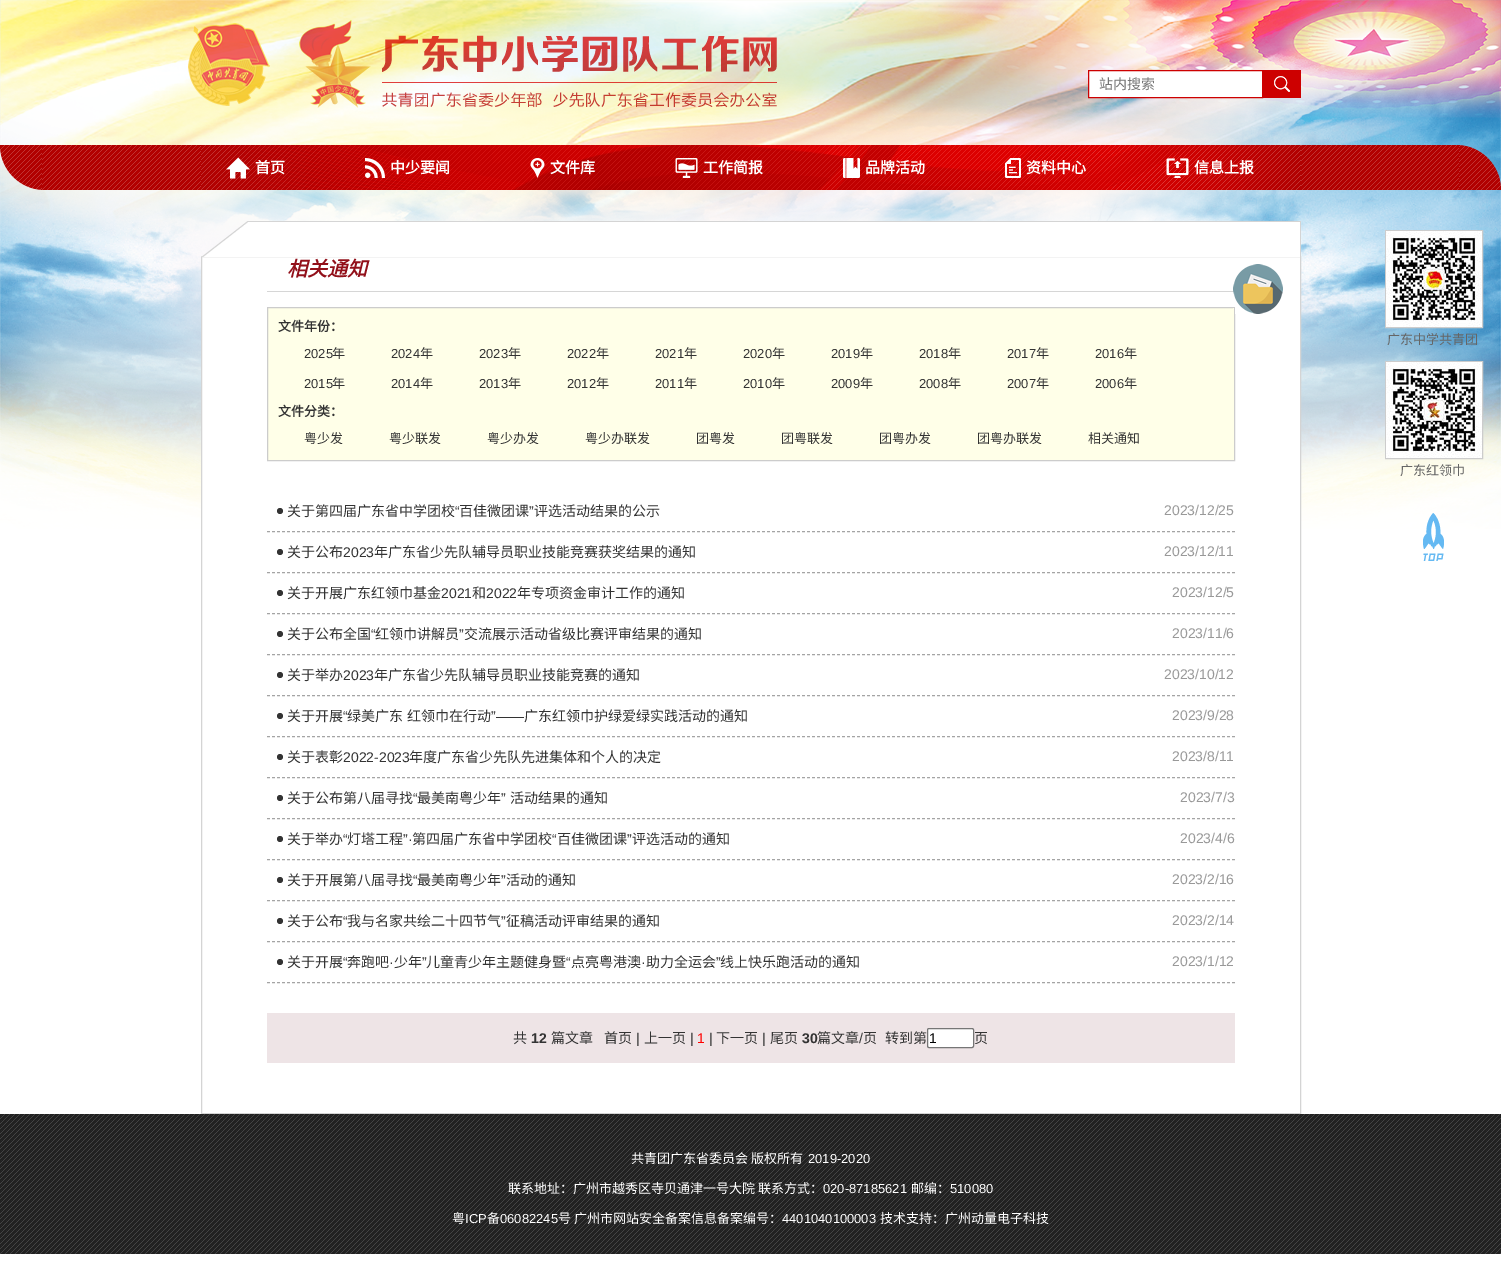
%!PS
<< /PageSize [1501 1277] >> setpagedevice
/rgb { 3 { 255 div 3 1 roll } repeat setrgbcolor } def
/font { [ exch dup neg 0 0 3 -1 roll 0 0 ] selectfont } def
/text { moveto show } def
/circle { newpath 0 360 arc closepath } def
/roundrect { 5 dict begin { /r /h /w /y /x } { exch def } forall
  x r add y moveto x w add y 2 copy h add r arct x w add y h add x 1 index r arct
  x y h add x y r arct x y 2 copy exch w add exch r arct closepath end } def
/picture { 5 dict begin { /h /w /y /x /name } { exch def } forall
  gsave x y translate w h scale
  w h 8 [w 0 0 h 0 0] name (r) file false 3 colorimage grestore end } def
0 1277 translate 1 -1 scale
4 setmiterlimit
255 255 255 rgb
0 0 1501 1277 rectfill
(img_01.rgb) 0 0 1501 529 picture
(img_02.rgb) 188 23 82 83 picture
(img_03.rgb) 299 20 478 88 picture
1088.5 70.5 moveto 174 0 rlineto 0 27 rlineto -174 0 rlineto closepath gsave fill grestore
205 0 0 rgb
stroke
1263 70 38 28 rectfill
(img_04.rgb) 1274 76 16 16 picture
(img_05.rgb) 42 145 1417 45 picture
(img_06.rgb) 0 145 42 45 picture
(img_07.rgb) 201 145 1100 45 picture
(img_08.rgb) 226 157 24 22 picture
(img_09.rgb) 365 158 20 20 picture
(img_10.rgb) 530 158 15 20 picture
(img_11.rgb) 675 158 23 20 picture
(img_12.rgb) 843 158 17 20 picture
(img_13.rgb) 1005 158 16 20 picture
(img_14.rgb) 1166 158 23 20 picture
(img_15.rgb) 1459 145 42 45 picture
255 255 255 rgb
202 257 1098 272 rectfill
212 212 212 rgb
201.5 256.5 1099 857 rectstroke
(img_16.rgb) 201 221 1100 36 picture
214 214 214 rgb
267 291 968 1 rectfill
255 255 232 rgb
267.5 307.5 moveto 967 0 rlineto 0 153 rlineto -967 0 rlineto closepath gsave fill grestore
204 204 204 rgb
stroke
(img_17.rgb) 1233 264 50 50 picture
164 164 164 rgb
[3 2] 0 setdash
267 531.5 moveto 968 0 rlineto stroke
51 51 51 rgb
280 511 3 circle fill
164 164 164 rgb
267 572.5 moveto 968 0 rlineto stroke
51 51 51 rgb
280 552 3 circle fill
164 164 164 rgb
267 613.5 moveto 968 0 rlineto stroke
51 51 51 rgb
280 593 3 circle fill
164 164 164 rgb
267 654.5 moveto 968 0 rlineto stroke
51 51 51 rgb
280 634 3 circle fill
164 164 164 rgb
267 695.5 moveto 968 0 rlineto stroke
51 51 51 rgb
280 675 3 circle fill
164 164 164 rgb
267 736.5 moveto 968 0 rlineto stroke
51 51 51 rgb
280 716 3 circle fill
164 164 164 rgb
267 777.5 moveto 968 0 rlineto stroke
51 51 51 rgb
280 757 3 circle fill
164 164 164 rgb
267 818.5 moveto 968 0 rlineto stroke
51 51 51 rgb
280 798 3 circle fill
164 164 164 rgb
267 859.5 moveto 968 0 rlineto stroke
51 51 51 rgb
280 839 3 circle fill
164 164 164 rgb
267 900.5 moveto 968 0 rlineto stroke
51 51 51 rgb
280 880 3 circle fill
164 164 164 rgb
267 941.5 moveto 968 0 rlineto stroke
51 51 51 rgb
280 921 3 circle fill
164 164 164 rgb
267 982.5 moveto 968 0 rlineto stroke
51 51 51 rgb
280 962 3 circle fill
238 228 230 rgb
267 1013 968 50 rectfill
255 255 255 rgb
927.5 1028.5 46 19 1.5 roundrect gsave fill grestore
118 118 118 rgb
[] 0 setdash
stroke
204 204 204 rgb
1385.5 230.5 97 97 rectstroke
(img_18.rgb) 1386 231 96 96 picture
1385.5 361.5 97 97 rectstroke
(img_19.rgb) 1386 362 96 96 picture
(img_20.rgb) 1423 513 21 48 picture
(img_21.rgb) 0 1114 1501 140 picture
/NotoSansCJKSC-Regular 14 font
117 117 117 rgb
(站内搜索) 1099 89 text
/NotoSansCJKSC-Bold 15 font
255 255 255 rgb
(首页) 255 173 text
(中少要闻) 390 173 text
(文件库) 550 173 text
(工作简报) 703 173 text
(品牌活动) 865 173 text
(资料中心) 1026 173 text
(信息上报) 1194 173 text
/NotoSansCJKSC-BoldItalic 20 font
146 16 26 rgb
(相关通知) 287 276 text
/NotoSansCJKSC-Bold 13 font
51 51 51 rgb
(文件年份：) 278 331 text
/LiberationSans-Regular 13 font
(2025) 304 358 text
/NotoSansCJKSC-Regular 13 font
(年) 332 358 text
/LiberationSans-Regular 13 font
(2024) 391 358 text
/NotoSansCJKSC-Regular 13 font
(年) 420 358 text
/LiberationSans-Regular 13 font
(2023) 479 358 text
/NotoSansCJKSC-Regular 13 font
(年) 508 358 text
/LiberationSans-Regular 13 font
(2022) 567 358 text
/NotoSansCJKSC-Regular 13 font
(年) 596 358 text
/LiberationSans-Regular 13 font
(2021) 655 358 text
/NotoSansCJKSC-Regular 13 font
(年) 684 358 text
/LiberationSans-Regular 13 font
(2020) 743 358 text
/NotoSansCJKSC-Regular 13 font
(年) 772 358 text
/LiberationSans-Regular 13 font
(2019) 831 358 text
/NotoSansCJKSC-Regular 13 font
(年) 860 358 text
/LiberationSans-Regular 13 font
(2018) 919 358 text
/NotoSansCJKSC-Regular 13 font
(年) 948 358 text
/LiberationSans-Regular 13 font
(2017) 1007 358 text
/NotoSansCJKSC-Regular 13 font
(年) 1036 358 text
/LiberationSans-Regular 13 font
(2016) 1095 358 text
/NotoSansCJKSC-Regular 13 font
(年) 1124 358 text
/LiberationSans-Regular 13 font
(2015) 304 388 text
/NotoSansCJKSC-Regular 13 font
(年) 332 388 text
/LiberationSans-Regular 13 font
(2014) 391 388 text
/NotoSansCJKSC-Regular 13 font
(年) 420 388 text
/LiberationSans-Regular 13 font
(2013) 479 388 text
/NotoSansCJKSC-Regular 13 font
(年) 508 388 text
/LiberationSans-Regular 13 font
(2012) 567 388 text
/NotoSansCJKSC-Regular 13 font
(年) 596 388 text
/LiberationSans-Regular 13 font
(2011) 655 388 text
/NotoSansCJKSC-Regular 13 font
(年) 684 388 text
/LiberationSans-Regular 13 font
(2010) 743 388 text
/NotoSansCJKSC-Regular 13 font
(年) 772 388 text
/LiberationSans-Regular 13 font
(2009) 831 388 text
/NotoSansCJKSC-Regular 13 font
(年) 860 388 text
/LiberationSans-Regular 13 font
(2008) 919 388 text
/NotoSansCJKSC-Regular 13 font
(年) 948 388 text
/LiberationSans-Regular 13 font
(2007) 1007 388 text
/NotoSansCJKSC-Regular 13 font
(年) 1036 388 text
/LiberationSans-Regular 13 font
(2006) 1095 388 text
/NotoSansCJKSC-Regular 13 font
(年) 1124 388 text
/NotoSansCJKSC-Bold 13 font
(文件分类：) 278 416 text
/NotoSansCJKSC-Regular 13 font
(粤少发) 304 443 text
(粤少联发) 389 443 text
(粤少办发) 487 443 text
(粤少办联发) 585 443 text
(团粤发) 696 443 text
(团粤联发) 781 443 text
(团粤办发) 879 443 text
(团粤办联发) 977 443 text
(相关通知) 1088 443 text
/NotoSansCJKSC-Regular 14 font
(关于第四届广东省中学团校) 287 516 text
/LiberationSans-Regular 14 font
(“) 455 516 text
/NotoSansCJKSC-Regular 14 font
(百佳微团课) 459 516 text
/LiberationSans-Regular 14 font
(”) 529 516 text
/NotoSansCJKSC-Regular 14 font
(评选活动结果的公示) 534 516 text
/LiberationSans-Regular 14 font
153 153 153 rgb
(2023/12/25) 1164 515 text
/NotoSansCJKSC-Regular 14 font
51 51 51 rgb
(关于公布) 287 557 text
/LiberationSans-Regular 14 font
(2023) 343 557 text
/NotoSansCJKSC-Regular 14 font
(年广东省少先队辅导员职业技能竞赛获奖结果的通知) 374 557 text
/LiberationSans-Regular 14 font
153 153 153 rgb
(2023/12/11) 1164 556 text
/NotoSansCJKSC-Regular 14 font
51 51 51 rgb
(关于开展广东红领巾基金) 287 598 text
/LiberationSans-Regular 14 font
(2021) 441 598 text
/NotoSansCJKSC-Regular 14 font
(和) 472 598 text
/LiberationSans-Regular 14 font
(2022) 486 598 text
/NotoSansCJKSC-Regular 14 font
(年专项资金审计工作的通知) 517 598 text
/LiberationSans-Regular 14 font
153 153 153 rgb
(2023/12/5) 1172 597 text
/NotoSansCJKSC-Regular 14 font
51 51 51 rgb
(关于公布全国) 287 639 text
/LiberationSans-Regular 14 font
(“) 371 639 text
/NotoSansCJKSC-Regular 14 font
(红领巾讲解员) 375 639 text
/LiberationSans-Regular 14 font
(”) 459 639 text
/NotoSansCJKSC-Regular 14 font
(交流展示活动省级比赛评审结果的通知) 464 639 text
/LiberationSans-Regular 14 font
153 153 153 rgb
(2023/11/6) 1172 638 text
/NotoSansCJKSC-Regular 14 font
51 51 51 rgb
(关于举办) 287 680 text
/LiberationSans-Regular 14 font
(2023) 343 680 text
/NotoSansCJKSC-Regular 14 font
(年广东省少先队辅导员职业技能竞赛的通知) 374 680 text
/LiberationSans-Regular 14 font
153 153 153 rgb
(2023/10/12) 1164 679 text
/NotoSansCJKSC-Regular 14 font
51 51 51 rgb
(关于开展) 287 721 text
/LiberationSans-Regular 14 font
(“) 343 721 text
/NotoSansCJKSC-Regular 14 font
(绿美广东) 347 721 text
(红领巾在行动) 407 721 text
/LiberationSans-Regular 14 font
(”——) 491 721 text
/NotoSansCJKSC-Regular 14 font
(广东红领巾护绿爱绿实践活动的通知) 524 721 text
/LiberationSans-Regular 14 font
153 153 153 rgb
(2023/9/28) 1172 720 text
/NotoSansCJKSC-Regular 14 font
51 51 51 rgb
(关于表彰) 287 762 text
/LiberationSans-Regular 14 font
(2022-2023) 343 762 text
/NotoSansCJKSC-Regular 14 font
(年度广东省少先队先进集体和个人的决定) 409 762 text
/LiberationSans-Regular 14 font
153 153 153 rgb
(2023/8/11) 1172 761 text
/NotoSansCJKSC-Regular 14 font
51 51 51 rgb
(关于公布第八届寻找) 287 803 text
/LiberationSans-Regular 14 font
(“) 413 803 text
/NotoSansCJKSC-Regular 14 font
(最美南粤少年) 417 803 text
/LiberationSans-Regular 14 font
(”) 501 803 text
/NotoSansCJKSC-Regular 14 font
(活动结果的通知) 510 803 text
/LiberationSans-Regular 14 font
153 153 153 rgb
(2023/7/3) 1180 802 text
/NotoSansCJKSC-Regular 14 font
51 51 51 rgb
(关于举办) 287 844 text
/LiberationSans-Regular 14 font
(“) 343 844 text
/NotoSansCJKSC-Regular 14 font
(灯塔工程) 347 844 text
/LiberationSans-Regular 14 font
(”·) 403 844 text
/NotoSansCJKSC-Regular 14 font
(第四届广东省中学团校) 412 844 text
/LiberationSans-Regular 14 font
(“) 552 844 text
/NotoSansCJKSC-Regular 14 font
(百佳微团课) 557 844 text
/LiberationSans-Regular 14 font
(”) 627 844 text
/NotoSansCJKSC-Regular 14 font
(评选活动的通知) 632 844 text
/LiberationSans-Regular 14 font
153 153 153 rgb
(2023/4/6) 1180 843 text
/NotoSansCJKSC-Regular 14 font
51 51 51 rgb
(关于开展第八届寻找) 287 885 text
/LiberationSans-Regular 14 font
(“) 413 885 text
/NotoSansCJKSC-Regular 14 font
(最美南粤少年) 417 885 text
/LiberationSans-Regular 14 font
(”) 501 885 text
/NotoSansCJKSC-Regular 14 font
(活动的通知) 506 885 text
/LiberationSans-Regular 14 font
153 153 153 rgb
(2023/2/16) 1172 884 text
/NotoSansCJKSC-Regular 14 font
51 51 51 rgb
(关于公布) 287 926 text
/LiberationSans-Regular 14 font
(“) 343 926 text
/NotoSansCJKSC-Regular 14 font
(我与名家共绘二十四节气) 347 926 text
/LiberationSans-Regular 14 font
(”) 501 926 text
/NotoSansCJKSC-Regular 14 font
(征稿活动评审结果的通知) 506 926 text
/LiberationSans-Regular 14 font
153 153 153 rgb
(2023/2/14) 1172 925 text
/NotoSansCJKSC-Regular 14 font
51 51 51 rgb
(关于开展) 287 967 text
/LiberationSans-Regular 14 font
(“) 343 967 text
/NotoSansCJKSC-Regular 14 font
(奔跑吧) 347 967 text
/LiberationSans-Regular 14 font
(·) 389 967 text
/NotoSansCJKSC-Regular 14 font
(少年) 394 967 text
/LiberationSans-Regular 14 font
(”) 422 967 text
/NotoSansCJKSC-Regular 14 font
(儿童青少年主题健身暨) 426 967 text
/LiberationSans-Regular 14 font
(“) 566 967 text
/NotoSansCJKSC-Regular 14 font
(点亮粤港澳) 571 967 text
/LiberationSans-Regular 14 font
(·) 641 967 text
/NotoSansCJKSC-Regular 14 font
(助力全运会) 646 967 text
/LiberationSans-Regular 14 font
(”) 716 967 text
/NotoSansCJKSC-Regular 14 font
(线上快乐跑活动的通知) 720 967 text
/LiberationSans-Regular 14 font
153 153 153 rgb
(2023/1/12) 1172 966 text
/NotoSansCJKSC-Regular 14 font
51 51 51 rgb
(共) 513 1043 text
/LiberationSans-Bold 14 font
(12) 531 1043 text
/NotoSansCJKSC-Regular 14 font
(篇文章) 551 1043 text
(首页) 604 1043 text
/LiberationSans-Regular 14 font
(|) 636 1043 text
/NotoSansCJKSC-Regular 14 font
(上一页) 644 1043 text
/LiberationSans-Regular 14 font
(|) 690 1043 text
255 0 0 rgb
(1) 697 1043 text
51 51 51 rgb
(|) 709 1043 text
/NotoSansCJKSC-Regular 14 font
(下一页) 716 1043 text
/LiberationSans-Regular 14 font
(|) 762 1043 text
/NotoSansCJKSC-Regular 14 font
(尾页) 770 1043 text
/LiberationSans-Bold 14 font
(30) 802 1043 text
/NotoSansCJKSC-Regular 14 font
(篇文章) 817 1043 text
/LiberationSans-Regular 14 font
(/) 859 1043 text
/NotoSansCJKSC-Regular 14 font
(页) 863 1043 text
(转到第) 885 1043 text
/LiberationSans-Regular 14 font
0 0 0 rgb
(1) 929 1043 text
/NotoSansCJKSC-Regular 14 font
51 51 51 rgb
(页) 974 1043 text
/NotoSansCJKSC-Regular 13 font
102 102 102 rgb
(广东中学共青团) 1387 344 text
(广东红领巾) 1400 475 text
255 255 255 rgb
(共青团广东省委员会 版权所有) 631 1163 text
/LiberationSans-Regular 13 font
(2019-2020) 808 1163 text
/NotoSansCJKSC-Regular 13 font
(联系地址：广州市越秀区寺贝通津一号大院 联系方式：) 508 1193 text
/LiberationSans-Regular 13 font
(020-87185621) 823 1193 text
/NotoSansCJKSC-Regular 13 font
(邮编：) 911 1193 text
/LiberationSans-Regular 13 font
(510080) 950 1193 text
/NotoSansCJKSC-Regular 13 font
(粤) 452 1223 text
/LiberationSans-Regular 13 font
(ICP) 465 1223 text
/NotoSansCJKSC-Regular 13 font
(备) 487 1223 text
/LiberationSans-Regular 13 font
(06082245) 500 1223 text
/NotoSansCJKSC-Regular 13 font
(号 广州市网站安全备案信息备案编号：) 558 1223 text
/LiberationSans-Regular 13 font
(4401040100003) 782 1223 text
/NotoSansCJKSC-Regular 13 font
(技术支持：广州动量电子科技) 880 1223 text
showpage
